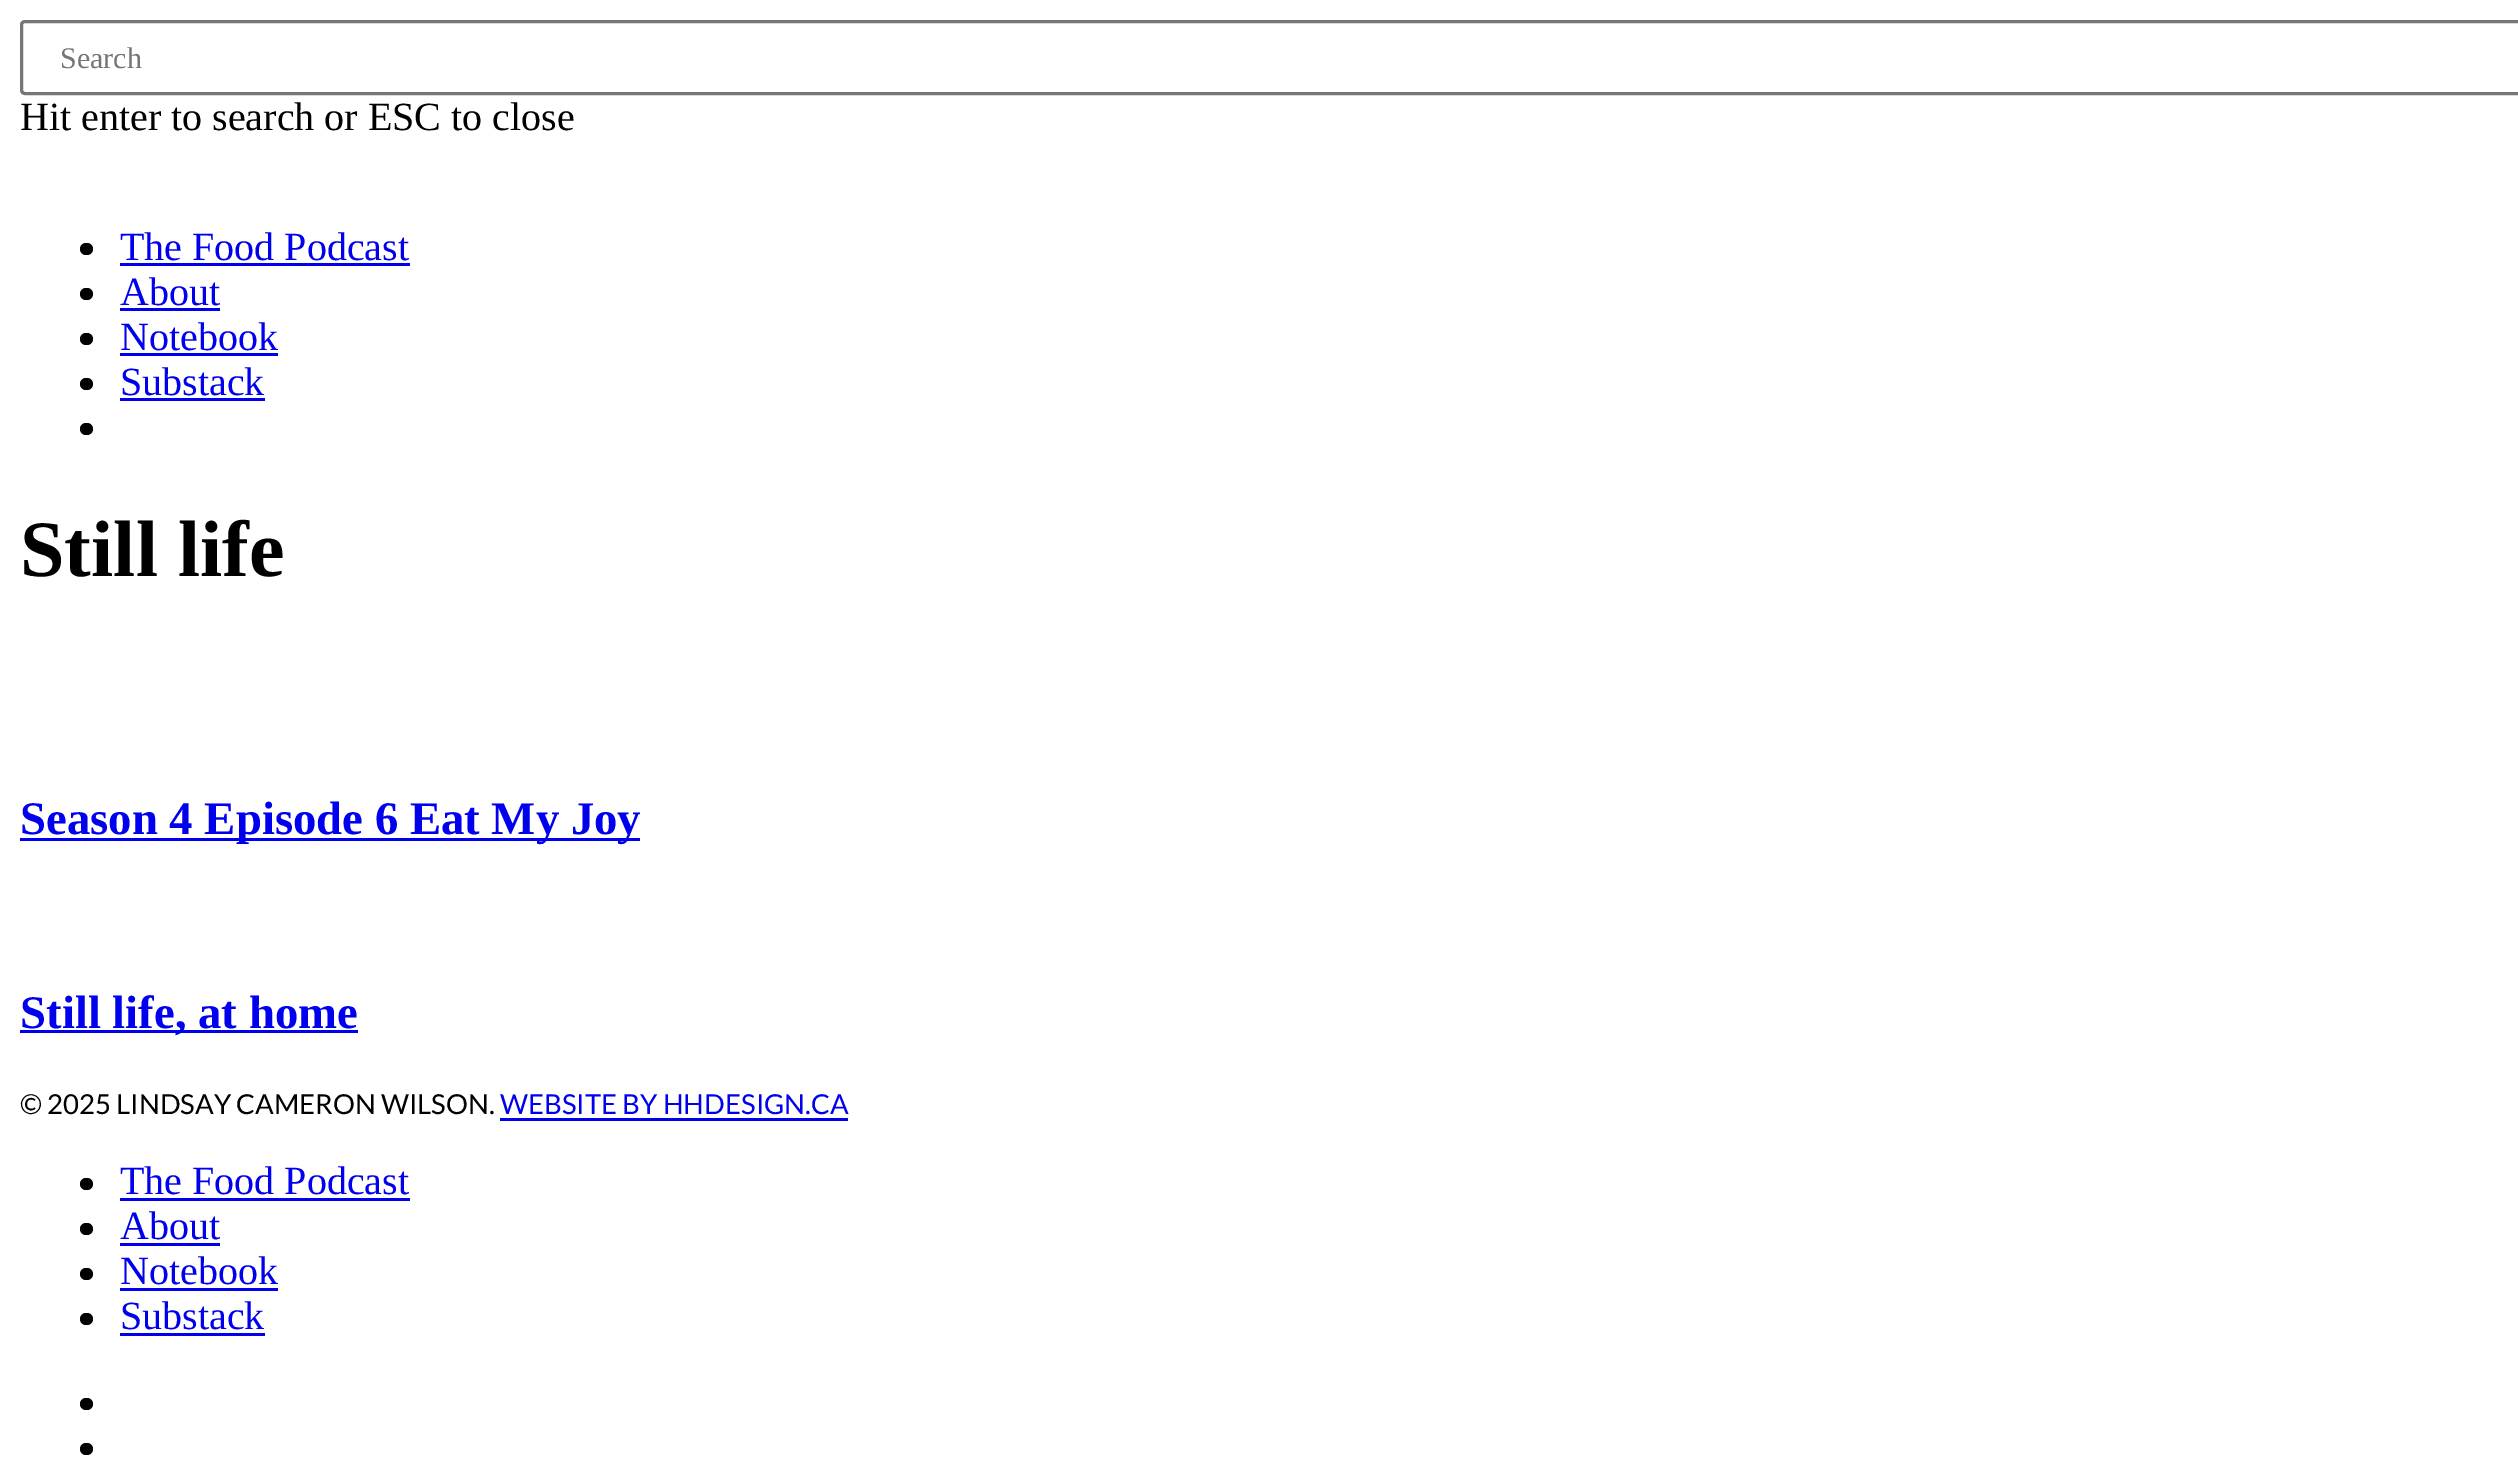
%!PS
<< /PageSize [2518 1457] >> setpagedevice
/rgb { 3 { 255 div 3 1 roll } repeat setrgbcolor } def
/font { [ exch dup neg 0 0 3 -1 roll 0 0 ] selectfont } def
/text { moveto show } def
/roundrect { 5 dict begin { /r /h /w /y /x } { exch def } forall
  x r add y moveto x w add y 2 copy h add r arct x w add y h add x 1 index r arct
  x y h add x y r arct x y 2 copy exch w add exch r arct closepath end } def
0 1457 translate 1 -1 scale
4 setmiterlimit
255 255 255 rgb
0 0 2518 1457 rectfill
118 118 118 rgb
3 setlinewidth
21.5 21.5 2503 72 3.5 roundrect stroke
0 0 0 rgb
80 243 13 12 6 roundrect fill
0 0 238 rgb
120 263 290 3 rectfill
0 0 0 rgb
80 288 13 12 6 roundrect fill
0 0 238 rgb
120 308 100 3 rectfill
0 0 0 rgb
80 333 13 12 6 roundrect fill
0 0 238 rgb
120 353 158 3 rectfill
0 0 0 rgb
80 378 13 12 6 roundrect fill
0 0 238 rgb
120 398 145 3 rectfill
0 0 0 rgb
80 423 13 12 6 roundrect fill
0 0 238 rgb
20 838 620 3 rectfill
20 1030 338 3 rectfill
500 1118 348 3 rectfill
0 0 0 rgb
80 1178 13 12 6 roundrect fill
0 0 238 rgb
120 1198 290 3 rectfill
0 0 0 rgb
80 1223 13 12 6 roundrect fill
0 0 238 rgb
120 1243 100 3 rectfill
0 0 0 rgb
80 1268 13 12 6 roundrect fill
0 0 238 rgb
120 1288 158 3 rectfill
0 0 0 rgb
80 1313 13 12 6 roundrect fill
0 0 238 rgb
120 1333 145 3 rectfill
0 0 0 rgb
80 1398 13 12 6 roundrect fill
80 1443 13 12 6 roundrect fill
/LiberationSerif-Regular 30 font
117 117 117 rgb
(Search) 60 68 text
/LiberationSerif-Regular 40 font
0 0 0 rgb
(Hit enter to search or ESC to close) 20 130 text
0 0 238 rgb
(The Food Podcast) 120 260 text
(About) 120 305 text
(Notebook) 120 350 text
(Substack) 120 395 text
/LiberationSerif-Bold 80 font
0 0 0 rgb
(Still life) 20 576 text
/LiberationSerif-Bold 46.75 font
0 0 238 rgb
(Season 4 Episode 6 Eat My Joy) 20 834 text
(Still life, at home) 20 1028 text
/Lato-Regular 27.5 font
0 0 0 rgb
(© 2025 LINDSAY CAMERON WILSON.) 20 1114 text
0 0 238 rgb
(WEBSITE BY HHDESIGN.CA) 500 1114 text
/LiberationSerif-Regular 40 font
(The Food Podcast) 120 1194 text
(About) 120 1239 text
(Notebook) 120 1284 text
(Substack) 120 1329 text
showpage
